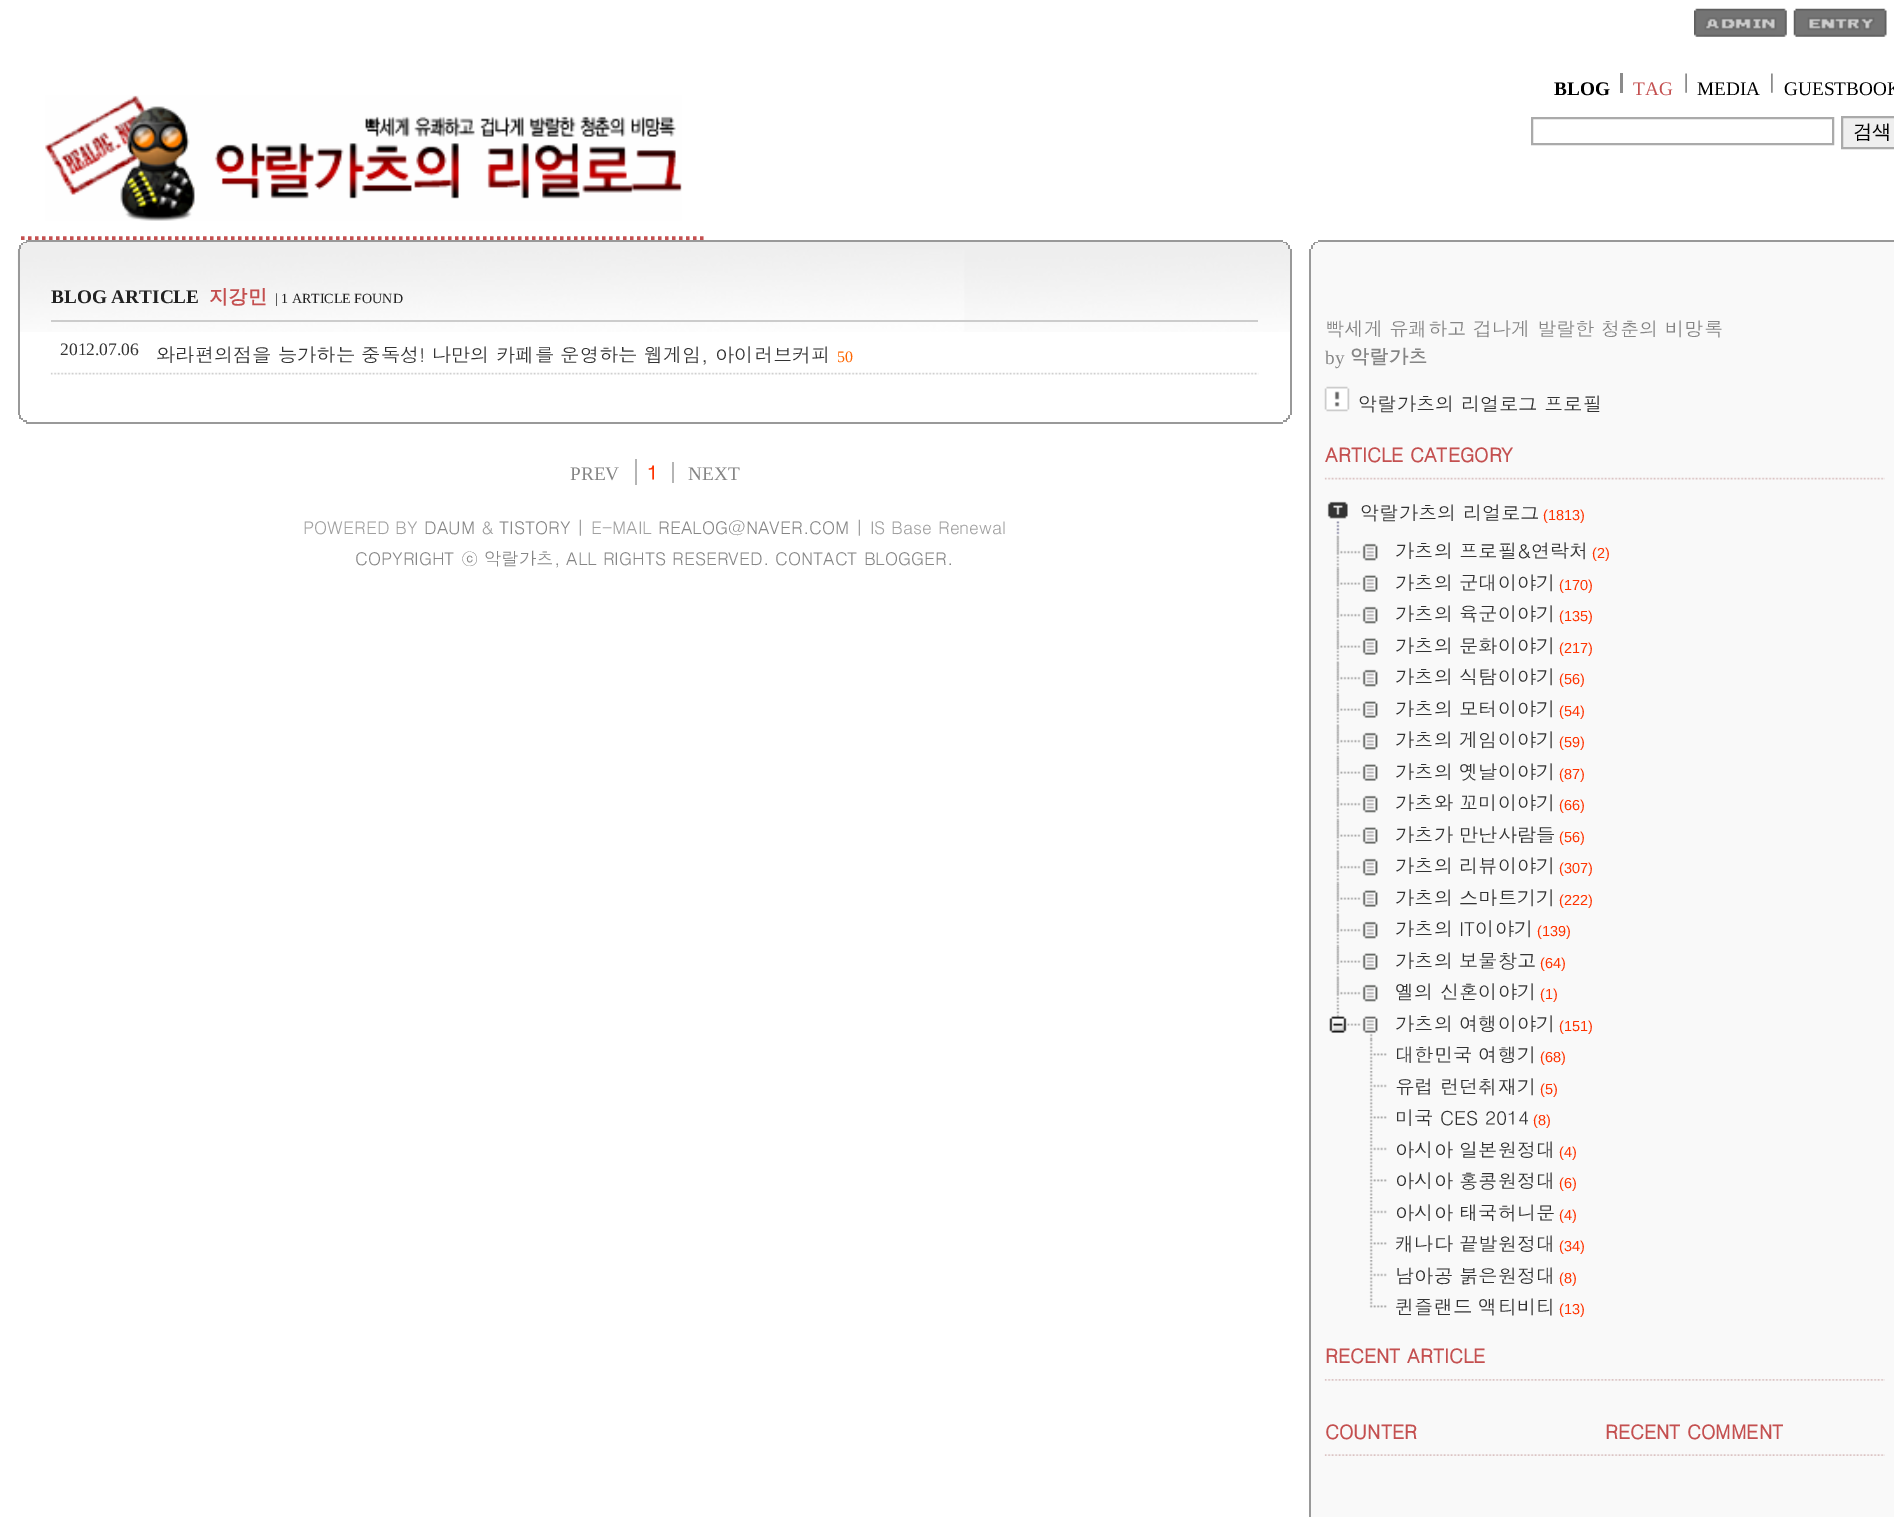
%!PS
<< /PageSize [1894 1517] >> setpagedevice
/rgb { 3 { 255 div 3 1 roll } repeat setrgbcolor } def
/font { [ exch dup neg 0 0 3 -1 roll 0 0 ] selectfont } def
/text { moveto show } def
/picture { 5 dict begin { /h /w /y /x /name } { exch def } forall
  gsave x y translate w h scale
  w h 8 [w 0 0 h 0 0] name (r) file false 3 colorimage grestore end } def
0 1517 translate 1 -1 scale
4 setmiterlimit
255 255 255 rgb
0 0 1894 1517 rectfill
(img_01.rgb) 1694 8 93 29 picture
(img_02.rgb) 1793 8 94 29 picture
139 139 139 rgb
1620 73 3 20 rectfill
(img_03.rgb) 1685 73 2 20 picture
(img_04.rgb) 1771 73 2 20 picture
196 80 80 rgb
3.5 setlinewidth
[3.5 3.5] 0 setdash
21 238 moveto 684 0 rlineto stroke
(img_05.rgb) 45 95 637 126 picture
170 170 170 rgb
2 setlinewidth
[] 0 setdash
1532 118 301 26 rectstroke
239 239 239 rgb
1842 117 moveto 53 0 rlineto 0 31 rlineto -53 0 rlineto closepath gsave fill grestore
170 170 170 rgb
stroke
153 153 153 rgb
26 240 1257 2 rectfill
238 238 238 rgb
23 242 1263 1 rectfill
153 153 153 rgb
1283 242 4 1 rectfill
23 242 4 1 rectfill
238 238 238 rgb
21 243 1267 2 rectfill
153 153 153 rgb
1286 243 2 2 rectfill
21 243 2 2 rectfill
(img_06.rgb) 17 248 1275 84 picture
238 238 238 rgb
19 245 1271 4 rectfill
153 153 153 rgb
1288 245 2 4 rectfill
19 245 2 4 rectfill
1290 249 2 166 rectfill
18 249 2 166 rectfill
204 204 204 rgb
51 320 1207 2 rectfill
(img_07.rgb) 50 372 1209 3 picture
153 153 153 rgb
1288 415 2 4 rectfill
19 415 2 4 rectfill
1286 418 2 2 rectfill
21 418 2 2 rectfill
1283 420 4 2 rectfill
23 420 4 2 rectfill
26 422 1257 2 rectfill
181 181 181 rgb
635 459 2 26 rectfill
672 462 2 21 rectfill
153 153 153 rgb
1318 240 576 2 rectfill
249 249 249 rgb
1314 242 580 1 rectfill
153 153 153 rgb
1314 242 4 1 rectfill
249 249 249 rgb
1313 243 581 2 rectfill
153 153 153 rgb
1313 243 2 2 rectfill
249 249 249 rgb
1311 245 583 1272 rectfill
153 153 153 rgb
1311 245 2 4 rectfill
1309 249 2 1268 rectfill
(img_08.rgb) 1324 386 26 26 picture
(img_09.rgb) 1324 477 561 3 picture
(img_10.rgb) 1327 501 21 34 picture
(img_11.rgb) 1336 535 4 32 picture
(img_12.rgb) 1336 537 42 24 picture
(img_13.rgb) 1336 567 4 32 picture
(img_14.rgb) 1336 568 42 24 picture
(img_15.rgb) 1336 598 4 32 picture
(img_12.rgb) 1336 600 42 24 picture
(img_13.rgb) 1336 630 4 32 picture
(img_14.rgb) 1336 631 42 24 picture
(img_15.rgb) 1336 661 4 32 picture
(img_12.rgb) 1336 663 42 24 picture
(img_13.rgb) 1336 693 4 32 picture
(img_14.rgb) 1336 694 42 24 picture
(img_15.rgb) 1336 724 4 32 picture
(img_12.rgb) 1336 726 42 24 picture
(img_13.rgb) 1336 756 4 32 picture
(img_14.rgb) 1336 757 42 24 picture
(img_15.rgb) 1336 787 4 32 picture
(img_12.rgb) 1336 789 42 24 picture
(img_13.rgb) 1336 819 4 32 picture
(img_14.rgb) 1336 820 42 24 picture
(img_15.rgb) 1336 850 4 32 picture
(img_12.rgb) 1336 852 42 24 picture
(img_13.rgb) 1336 882 4 32 picture
(img_14.rgb) 1336 883 42 24 picture
(img_15.rgb) 1336 913 4 32 picture
(img_12.rgb) 1336 915 42 24 picture
(img_13.rgb) 1336 945 4 32 picture
(img_14.rgb) 1336 946 42 24 picture
(img_15.rgb) 1336 976 4 32 picture
(img_12.rgb) 1336 978 42 24 picture
(img_16.rgb) 1336 1008 4 10 picture
(img_17.rgb) 1329 1016 49 24 picture
(img_18.rgb) 1369 1039 18 31 picture
(img_19.rgb) 1369 1071 18 31 picture
(img_20.rgb) 1369 1102 18 31 picture
(img_19.rgb) 1369 1134 18 31 picture
(img_20.rgb) 1369 1165 18 31 picture
(img_19.rgb) 1369 1197 18 31 picture
(img_20.rgb) 1369 1228 18 31 picture
(img_19.rgb) 1369 1260 18 31 picture
(img_21.rgb) 1369 1291 18 17 picture
(img_22.rgb) 1324 1379 561 2 picture
(img_23.rgb) 1324 1454 281 2 picture
(img_24.rgb) 1604 1454 281 2 picture
/LiberationSerif-Bold 19.25 font
0 0 0 rgb
(BLOG) 1554 95 text
/LiberationSerif-Regular 19.25 font
196 80 80 rgb
(TAG) 1633 95 text
0 0 0 rgb
(MEDIA) 1697 95 text
(GUESTBOOK) 1784 95 text
/WenQuanYiZenHei-Medium 19.25 font
(검색) 1853 138 text
/LiberationSerif-Bold 19.25 font
34 34 34 rgb
(BLOG ARTICLE) 51 303 text
/WenQuanYiZenHei-Bold 19.25 font
196 80 80 rgb
(지강민) 209 303 text
/LiberationSerif-Regular 14 font
34 34 34 rgb
(| 1 ARTICLE FOUND) 275 303 text
/LiberationSerif-Regular 17.5 font
51 51 51 rgb
(2012.07.06) 60 355 text
/Dotum-Regular 19.25 font
(와라편의점을 능가하는 중독성! 나만의 카페를 운영하는 웹게임, 아이러브커피) 156 362 text
/LiberationSerif-Regular 16 font
255 102 0 rgb
(50) 837 362 text
/LiberationSerif-Regular 19.25 font
133 133 133 rgb
(PREV) 570 480 text
/Dotum-Bold 19.25 font
255 51 0 rgb
(1) 647 480 text
/LiberationSerif-Regular 19.25 font
133 133 133 rgb
(NEXT) 688 480 text
/Dotum-Regular 17.5 font
160 160 160 rgb
(POWERED BY) 303 534 text
133 133 133 rgb
(DAUM) 424 534 text
160 160 160 rgb
(&) 481 534 text
133 133 133 rgb
(TISTORY) 499 534 text
160 160 160 rgb
(| E-MAIL) 576 534 text
133 133 133 rgb
(REALOG@NAVER.COM) 658 534 text
160 160 160 rgb
(| IS Base Renewal) 855 534 text
133 133 133 rgb
(COPYRIGHT ⓒ 악랄가츠, ALL RIGHTS RESERVED. CONTACT BLOGGER.) 355 565 text
/Dotum-Regular 19.25 font
(빡세게 유쾌하고 겁나게 발랄한 청춘의 비망록) 1325 336 text
/LiberationSerif-Regular 19.25 font
(by) 1325 364 text
/Dotum-Bold 19.25 font
(악랄가츠) 1350 364 text
/Dotum-Regular 19.25 font
51 51 51 rgb
(악랄가츠의 리얼로그 프로필) 1358 411 text
/Dotum-Bold 19.25 font
196 80 80 rgb
(ARTICLE CATEGORY) 1325 462 text
/Dotum-Regular 19.25 font
51 51 51 rgb
(악랄가츠의 리얼로그) 1360 520 text
/LiberationSans-Regular 14.5 font
255 51 0 rgb
(\(1813\)) 1543 520 text
/Dotum-Regular 19.25 font
51 51 51 rgb
(가츠의 프로필&연락처) 1395 558 text
/LiberationSans-Regular 14.5 font
255 51 0 rgb
(\(2\)) 1592 558 text
/Dotum-Regular 19.25 font
51 51 51 rgb
(가츠의 군대이야기) 1395 590 text
/LiberationSans-Regular 14.5 font
255 51 0 rgb
(\(170\)) 1559 590 text
/Dotum-Regular 19.25 font
51 51 51 rgb
(가츠의 육군이야기) 1395 621 text
/LiberationSans-Regular 14.5 font
255 51 0 rgb
(\(135\)) 1559 621 text
/Dotum-Regular 19.25 font
51 51 51 rgb
(가츠의 문화이야기) 1395 653 text
/LiberationSans-Regular 14.5 font
255 51 0 rgb
(\(217\)) 1559 653 text
/Dotum-Regular 19.25 font
51 51 51 rgb
(가츠의 식탐이야기) 1395 684 text
/LiberationSans-Regular 14.5 font
255 51 0 rgb
(\(56\)) 1559 684 text
/Dotum-Regular 19.25 font
51 51 51 rgb
(가츠의 모터이야기) 1395 716 text
/LiberationSans-Regular 14.5 font
255 51 0 rgb
(\(54\)) 1559 716 text
/Dotum-Regular 19.25 font
51 51 51 rgb
(가츠의 게임이야기) 1395 747 text
/LiberationSans-Regular 14.5 font
255 51 0 rgb
(\(59\)) 1559 747 text
/Dotum-Regular 19.25 font
51 51 51 rgb
(가츠의 옛날이야기) 1395 779 text
/LiberationSans-Regular 14.5 font
255 51 0 rgb
(\(87\)) 1559 779 text
/Dotum-Regular 19.25 font
51 51 51 rgb
(가츠와 꼬미이야기) 1395 810 text
/LiberationSans-Regular 14.5 font
255 51 0 rgb
(\(66\)) 1559 810 text
/Dotum-Regular 19.25 font
51 51 51 rgb
(가츠가 만난사람들) 1395 842 text
/LiberationSans-Regular 14.5 font
255 51 0 rgb
(\(56\)) 1559 842 text
/Dotum-Regular 19.25 font
51 51 51 rgb
(가츠의 리뷰이야기) 1395 873 text
/LiberationSans-Regular 14.5 font
255 51 0 rgb
(\(307\)) 1559 873 text
/Dotum-Regular 19.25 font
51 51 51 rgb
(가츠의 스마트기기) 1395 905 text
/LiberationSans-Regular 14.5 font
255 51 0 rgb
(\(222\)) 1559 905 text
/Dotum-Regular 19.25 font
51 51 51 rgb
(가츠의 IT이야기) 1395 936 text
/LiberationSans-Regular 14.5 font
255 51 0 rgb
(\(139\)) 1537 936 text
/Dotum-Regular 19.25 font
51 51 51 rgb
(가츠의 보물창고) 1395 968 text
/LiberationSans-Regular 14.5 font
255 51 0 rgb
(\(64\)) 1540 968 text
/Dotum-Regular 19.25 font
51 51 51 rgb
(옐의 신혼이야기) 1395 999 text
/LiberationSans-Regular 14.5 font
255 51 0 rgb
(\(1\)) 1540 999 text
/Dotum-Regular 19.25 font
51 51 51 rgb
(가츠의 여행이야기) 1395 1031 text
/LiberationSans-Regular 14.5 font
255 51 0 rgb
(\(151\)) 1559 1031 text
/Dotum-Regular 19.25 font
51 51 51 rgb
(대한민국 여행기) 1395 1062 text
/LiberationSans-Regular 14.5 font
255 51 0 rgb
(\(68\)) 1540 1062 text
/Dotum-Regular 19.25 font
51 51 51 rgb
(유럽 런던취재기) 1395 1094 text
/LiberationSans-Regular 14.5 font
255 51 0 rgb
(\(5\)) 1540 1094 text
/Dotum-Regular 19.25 font
51 51 51 rgb
(미국 CES 2014) 1395 1125 text
/LiberationSans-Regular 14.5 font
255 51 0 rgb
(\(8\)) 1533 1125 text
/Dotum-Regular 19.25 font
51 51 51 rgb
(아시아 일본원정대) 1395 1157 text
/LiberationSans-Regular 14.5 font
255 51 0 rgb
(\(4\)) 1559 1157 text
/Dotum-Regular 19.25 font
51 51 51 rgb
(아시아 홍콩원정대) 1395 1188 text
/LiberationSans-Regular 14.5 font
255 51 0 rgb
(\(6\)) 1559 1188 text
/Dotum-Regular 19.25 font
51 51 51 rgb
(아시아 태국허니문) 1395 1220 text
/LiberationSans-Regular 14.5 font
255 51 0 rgb
(\(4\)) 1559 1220 text
/Dotum-Regular 19.25 font
51 51 51 rgb
(캐나다 끝발원정대) 1395 1251 text
/LiberationSans-Regular 14.5 font
255 51 0 rgb
(\(34\)) 1559 1251 text
/Dotum-Regular 19.25 font
51 51 51 rgb
(남아공 붉은원정대) 1395 1283 text
/LiberationSans-Regular 14.5 font
255 51 0 rgb
(\(8\)) 1559 1283 text
/Dotum-Regular 19.25 font
51 51 51 rgb
(퀸즐랜드 액티비티) 1395 1314 text
/LiberationSans-Regular 14.5 font
255 51 0 rgb
(\(13\)) 1559 1314 text
/Dotum-Bold 19.25 font
196 80 80 rgb
(RECENT ARTICLE) 1325 1363 text
(COUNTER) 1325 1439 text
(RECENT COMMENT) 1605 1439 text
showpage
